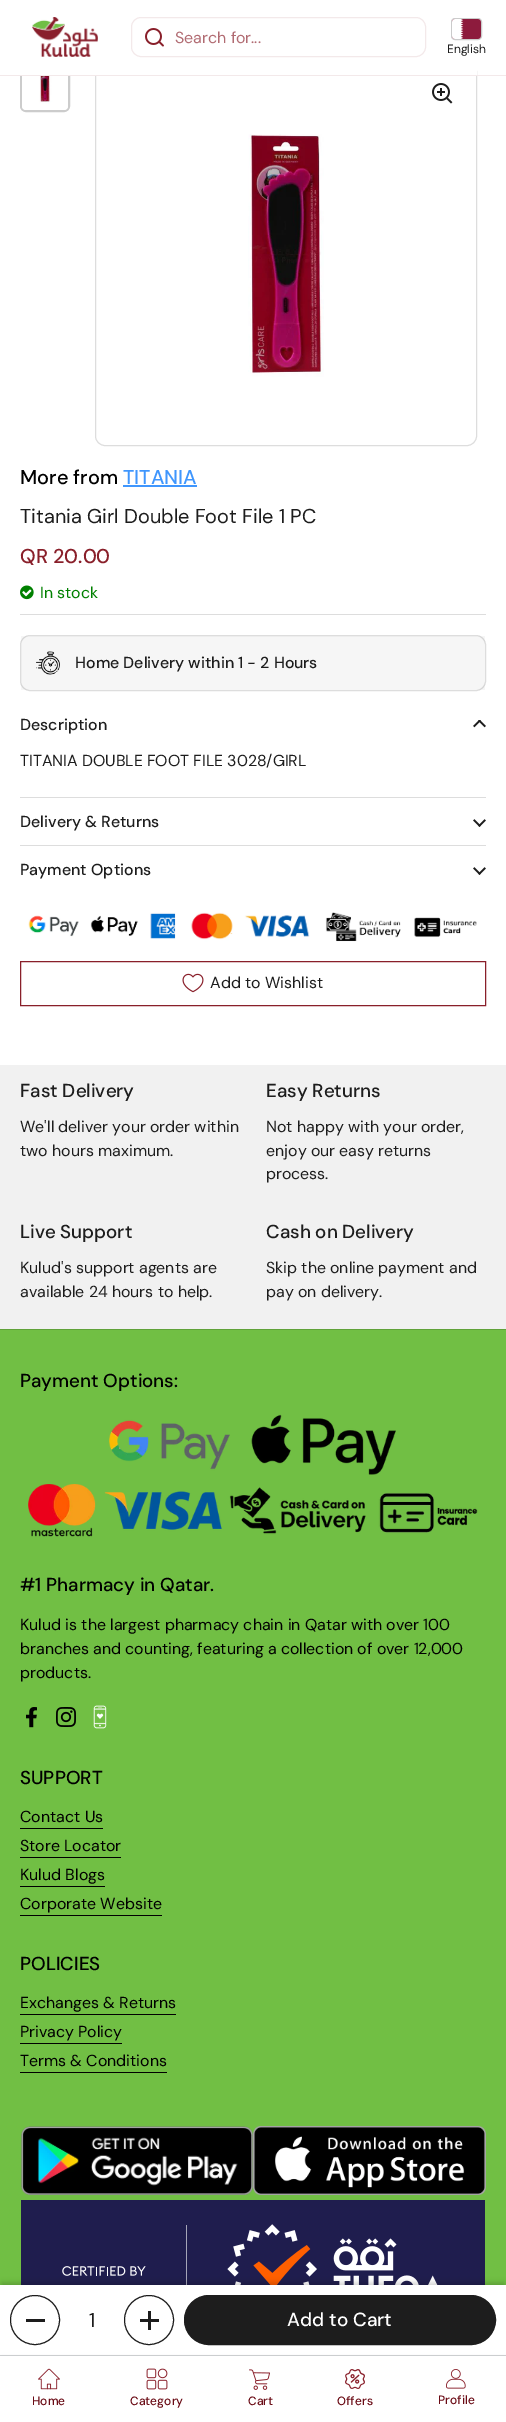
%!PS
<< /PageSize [506 2422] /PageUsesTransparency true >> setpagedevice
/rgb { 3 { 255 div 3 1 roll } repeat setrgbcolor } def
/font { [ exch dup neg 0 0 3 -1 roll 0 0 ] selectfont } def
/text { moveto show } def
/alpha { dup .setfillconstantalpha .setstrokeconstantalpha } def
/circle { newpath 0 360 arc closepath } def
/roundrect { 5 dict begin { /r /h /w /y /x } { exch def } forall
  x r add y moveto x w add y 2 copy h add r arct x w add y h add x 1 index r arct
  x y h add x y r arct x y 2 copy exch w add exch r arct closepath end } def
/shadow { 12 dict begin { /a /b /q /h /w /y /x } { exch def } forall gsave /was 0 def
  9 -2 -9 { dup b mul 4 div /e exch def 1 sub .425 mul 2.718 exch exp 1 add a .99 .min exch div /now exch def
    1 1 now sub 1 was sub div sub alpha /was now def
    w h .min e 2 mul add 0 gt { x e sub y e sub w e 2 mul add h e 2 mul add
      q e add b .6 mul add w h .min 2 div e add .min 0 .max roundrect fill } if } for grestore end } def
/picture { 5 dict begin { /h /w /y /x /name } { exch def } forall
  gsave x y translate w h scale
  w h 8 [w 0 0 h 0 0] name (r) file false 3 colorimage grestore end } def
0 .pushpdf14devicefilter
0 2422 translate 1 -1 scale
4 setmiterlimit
255 255 255 rgb
0 0 506 2422 rectfill
204 204 204 rgb
2 setlinewidth
21 63 48 48 5 roundrect stroke
221 221 221 rgb
1 setlinewidth
95.5 62.5 381 383 9.5 roundrect stroke
255 255 255 rgb
20 62 457 13 rectfill
243 233 234 rgb
0 75 506 1 rectfill
(img_01.rgb) 32 17 66 40 picture
131.5 17.5 294 39 9.5 roundrect stroke
(img_02.rgb) 145 28 19 19 picture
203 203 203 rgb
451.5 18.5 30 21 3.5 roundrect stroke
(img_03.rgb) 452 19 29 20 picture
(img_04.rgb) 22 76 46 34 picture
(img_05.rgb) 432 83 21 21 picture
(img_06.rgb) 248 134 76 243 picture
63 150 253 rgb
123 485 74 2 rectfill
(img_07.rgb) 20 585 14 15 picture
221 221 221 rgb
20 614 466 1 rectfill
20.5 635.5 465 55 9.5 roundrect stroke
0.04 alpha
29 29 29 rgb
21 636 464 54 rectfill
1 alpha
(img_08.rgb) 36 651 24 24 picture
(img_09.rgb) 473 720 13 8 picture
221 221 221 rgb
20 797 466 1 rectfill
(img_10.rgb) 473 819 13 8 picture
20 845 466 1 rectfill
(img_10.rgb) 473 867 13 8 picture
(img_11.rgb) 28 912 449 30 picture
137 31 42 rgb
20.5 961.5 465 44 rectstroke
(img_12.rgb) 182 973 22 20 picture
241 241 241 rgb
0 1065 506 264 rectfill
113 191 68 rgb
0 1330 506 955 rectfill
96 162 58 rgb
0 1329 506 1 rectfill
(img_13.rgb) 28 1414 450 123 picture
(img_14.rgb) 26 1707 11 21 picture
(img_15.rgb) 56 1707 20 20 picture
(img_16.rgb) 93 1705 14 24 picture
0 0 0 rgb
20 1828 83 1 rectfill
20 1857 101 1 rectfill
20 1886 85 1 rectfill
20 1915 142 1 rectfill
20 2014 156 1 rectfill
20 2043 102 1 rectfill
20 2072 147 1 rectfill
(img_17.rgb) 21 2126 232 69 picture
(img_18.rgb) 253 2126 233 69 picture
(img_19.rgb) 21 2200 464 85 picture
205 207 209 rgb
0 2355 506 1 rectfill
0 0 0 rgb
2 2283 502 66 0 3 0.2 shadow
255 255 255 rgb
0 2285 506 69 rectfill
29 29 29 rgb
35 2320 24.5 circle stroke
26 2319 19 3 rectfill
149 2320 24.5 circle stroke
148 2311 3 19 rectfill
140 2319 19 3 rectfill
184.5 2295.5 311 49 24.5 roundrect gsave fill grestore
stroke
(img_20.rgb) 38 2368 22 22 picture
(img_21.rgb) 146 2368 22 22 picture
(img_22.rgb) 249 2369 21 21 picture
(img_23.rgb) 345 2369 20 20 picture
(img_24.rgb) 446 2369 20 20 picture
/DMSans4-Regular 16 font
177 107 114 rgb
(Search for...) 175 43 text
/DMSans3-Regular 12 font
29 29 29 rgb
(English) 447 53 text
/DMSans-Medium 20 font
0 0 0 rgb
(More from) 20 484 text
63 150 253 rgb
(TITANIA) 123 484 text
/DMSans-Regular 20 font
29 29 29 rgb
(Titania Girl Double Foot File 1 PC) 20 523 text
/DMSans-Medium 20 font
137 31 42 rgb
(QR 20.00) 20 563 text
/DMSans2-Regular 15.95 font
0 128 0 rgb
(In stock) 40 598 text
/DMSans2-Medium 15.95 font
29 29 29 rgb
(Home Delivery within 1 - 2 Hours) 75 668 text
(Description) 20 730 text
/DMSans2-Regular 15.95 font
(TITANIA DOUBLE FOOT FILE 3028/GIRL) 20 766 text
/DMSans2-Medium 15.95 font
(Delivery & Returns) 20 827 text
(Payment Options) 20 875 text
/DMSans2-Regular 15.95 font
(Add to Wishlist) 210 988 text
/DMSans3-Medium 18.75 font
(Fast Delivery) 20 1097 text
/DMSans2-Regular 15.95 font
(We'll deliver your order within) 20 1132 text
(two hours maximum.) 20 1156 text
/DMSans3-Medium 18.75 font
(Easy Returns) 266 1097 text
/DMSans2-Regular 15.95 font
(Not happy with your order,) 266 1132 text
(enjoy our easy returns) 266 1156 text
(process.) 266 1179 text
/DMSans3-Medium 18.75 font
(Live Support) 20 1238 text
/DMSans2-Regular 15.95 font
(Kulud's support agents are) 20 1273 text
(available 24 hours to help.) 20 1297 text
/DMSans3-Medium 18.75 font
(Cash on Delivery) 266 1238 text
/DMSans2-Regular 15.95 font
(Skip the online payment and) 266 1273 text
(pay on delivery.) 266 1297 text
/DMSans3-Medium 18.75 font
0 0 0 rgb
(Payment Options:) 20 1387 text
(#1 Pharmacy in Qatar.) 20 1591 text
/DMSans2-Regular 15.95 font
(Kulud is the largest pharmacy chain in Qatar with over 100) 20 1630 text
(branches and counting, featuring a collection of over 12,000) 20 1654 text
(products.) 20 1678 text
/DMSans3-Medium 18.75 font
(SUPPORT) 20 1784 text
/DMSans2-Regular 15.95 font
(Contact Us) 20 1822 text
(Store Locator) 20 1851 text
(Kulud Blogs) 20 1880 text
(Corporate Website) 20 1909 text
/DMSans3-Medium 18.75 font
(POLICIES) 20 1970 text
/DMSans2-Regular 15.95 font
(Exchanges & Returns) 20 2008 text
(Privacy Policy) 20 2037 text
(Terms & Conditions) 20 2066 text
/DMSans-Regular 20 font
29 29 29 rgb
(1) 89 2327 text
/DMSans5-Medium 19 font
255 255 255 rgb
(Add to Cart) 287 2326 text
/DMSans4-Medium 12 font
106 11 21 rgb
(Home) 32 2405 text
(Category) 130 2405 text
(Cart) 248 2405 text
(Offers) 337 2405 text
(Profile) 438 2404 text
.poppdf14devicefilter showpage
